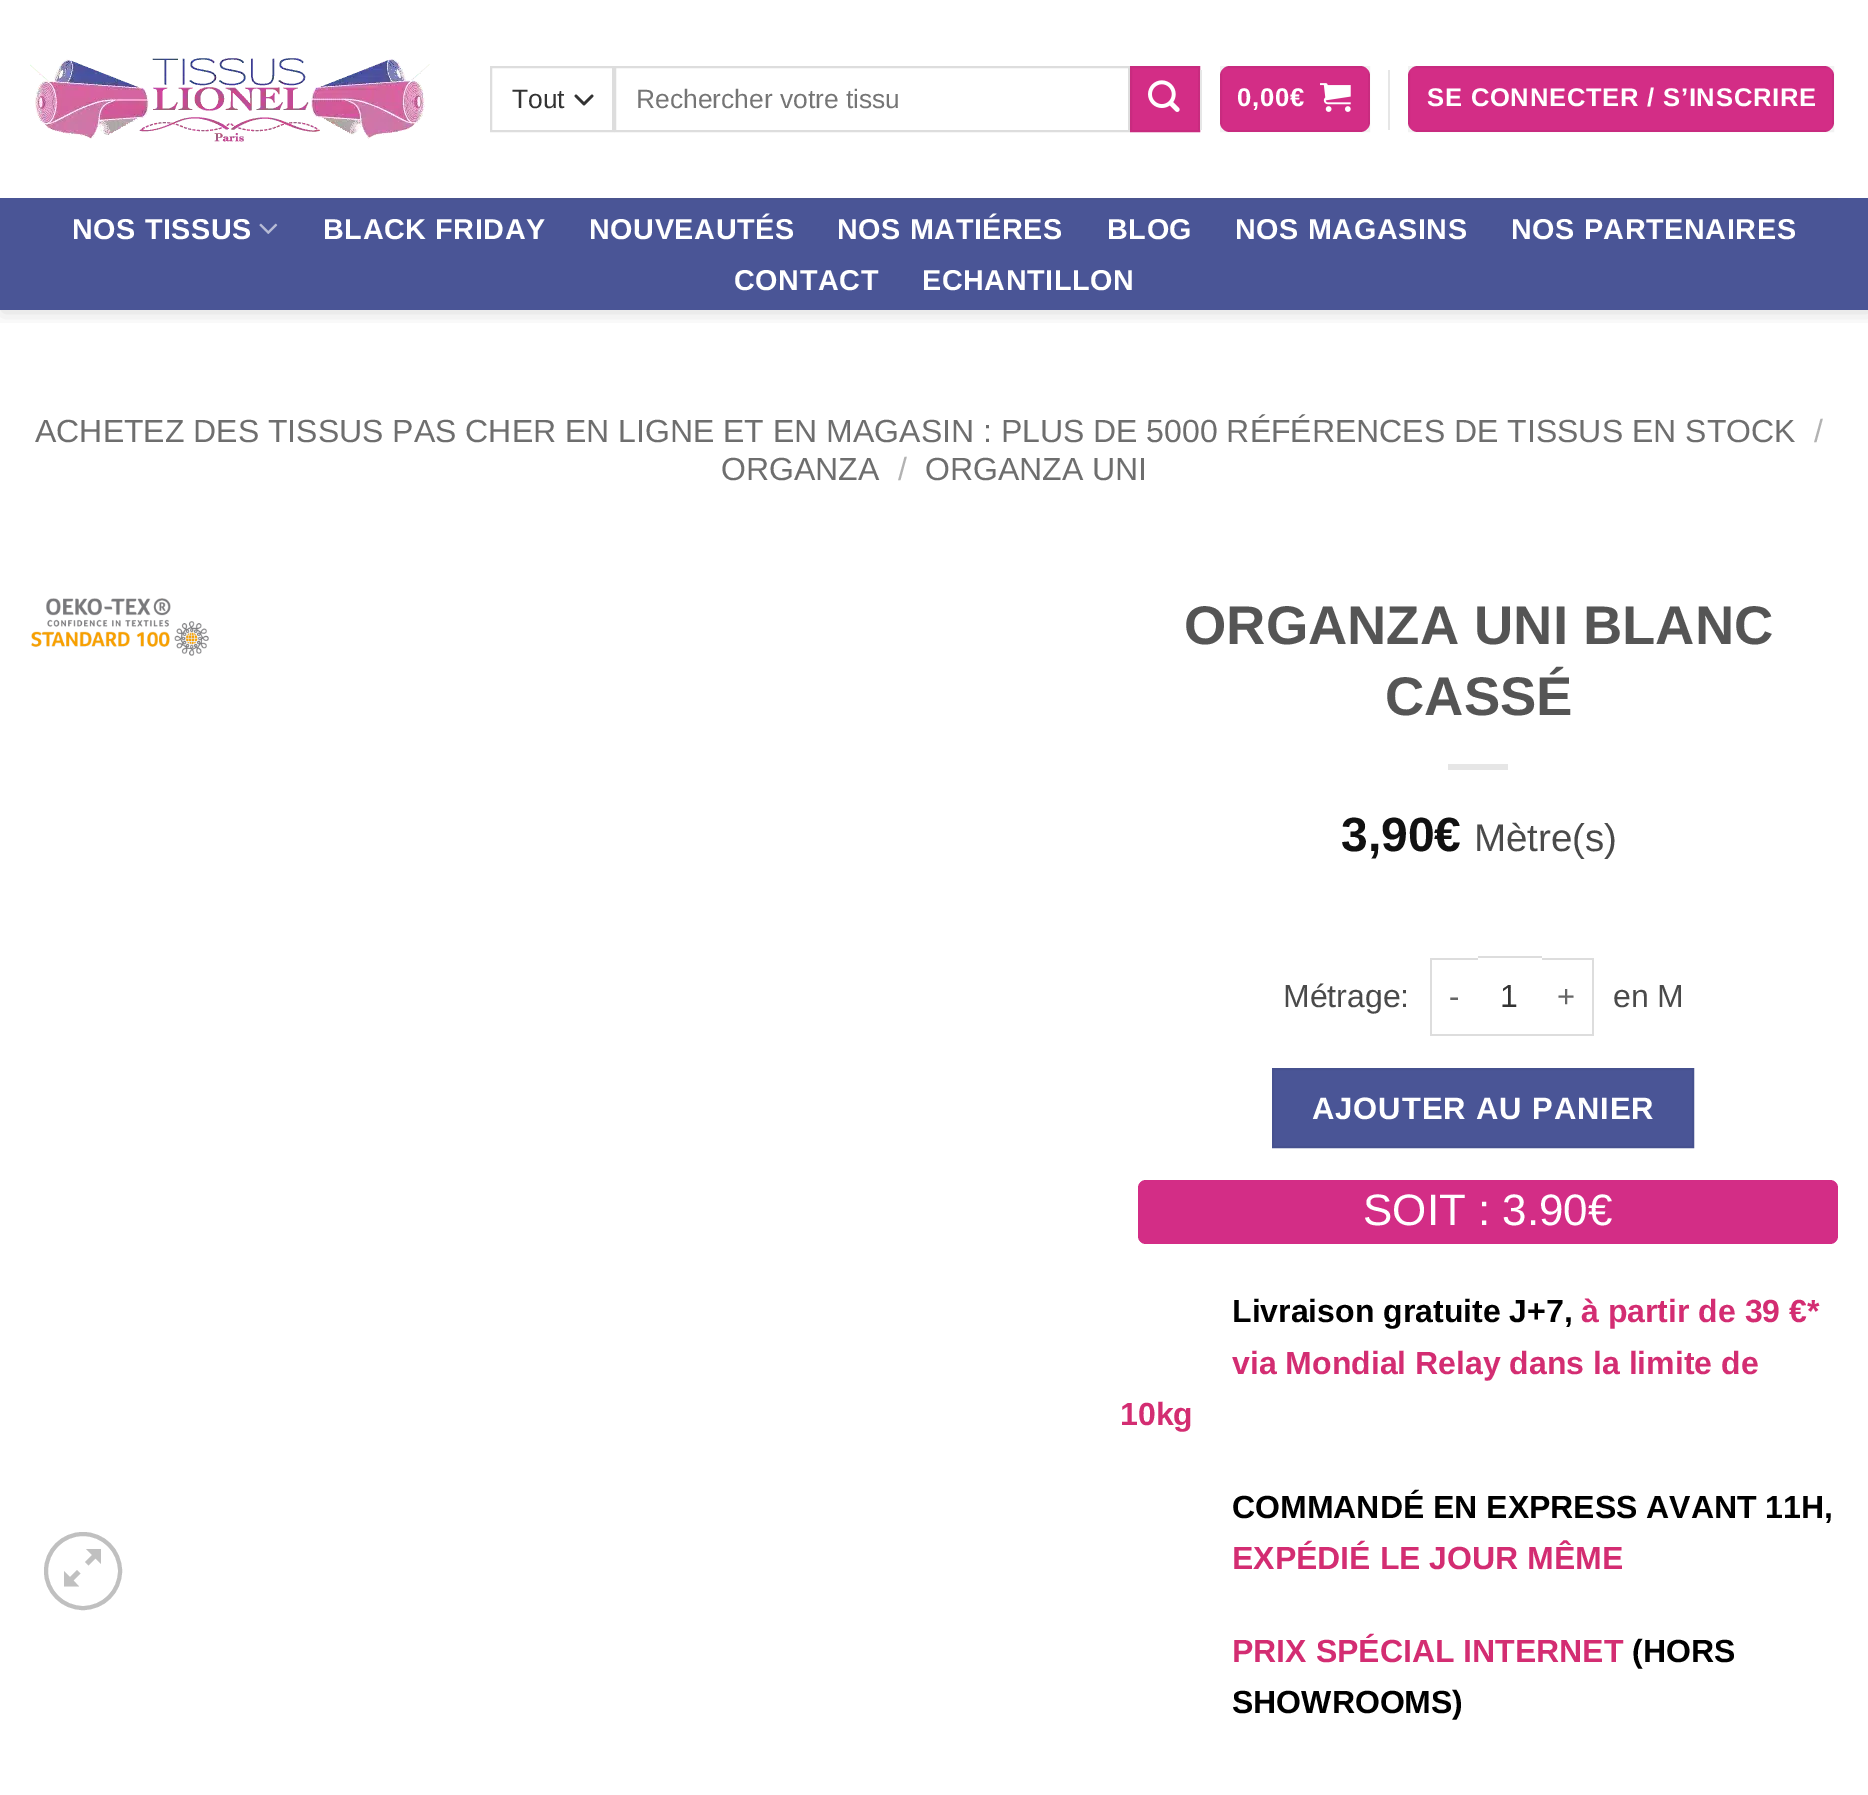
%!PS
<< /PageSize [1868 1795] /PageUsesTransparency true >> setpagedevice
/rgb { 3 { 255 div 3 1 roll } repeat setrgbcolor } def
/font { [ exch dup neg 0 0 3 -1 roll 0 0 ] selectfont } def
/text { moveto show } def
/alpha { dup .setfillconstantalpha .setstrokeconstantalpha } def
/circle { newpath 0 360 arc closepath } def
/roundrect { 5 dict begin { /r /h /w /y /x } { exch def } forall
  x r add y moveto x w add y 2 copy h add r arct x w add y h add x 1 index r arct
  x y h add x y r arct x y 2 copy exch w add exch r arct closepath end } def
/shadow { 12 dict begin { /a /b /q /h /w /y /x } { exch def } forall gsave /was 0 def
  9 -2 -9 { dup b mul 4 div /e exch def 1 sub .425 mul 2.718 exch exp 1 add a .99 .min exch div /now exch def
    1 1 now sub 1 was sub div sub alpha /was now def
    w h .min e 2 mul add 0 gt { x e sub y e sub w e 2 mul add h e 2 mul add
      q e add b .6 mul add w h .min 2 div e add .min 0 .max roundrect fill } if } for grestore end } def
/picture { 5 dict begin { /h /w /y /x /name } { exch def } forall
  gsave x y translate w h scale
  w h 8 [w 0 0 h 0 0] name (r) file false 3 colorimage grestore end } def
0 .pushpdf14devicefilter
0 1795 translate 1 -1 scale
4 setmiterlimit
255 255 255 rgb
0 0 1868 1795 rectfill
gsave
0 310 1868 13 rectclip
0 0 0 rgb
2 2 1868 310 0 10 0.15 shadow
grestore
(img_01.rgb) 30 58 400 84 picture
51 51 51 rgb
2.7 setlinewidth
1 setlinecap
1 setlinejoin
576 96 moveto 8 8 rlineto 8 -8 rlineto stroke
221 221 221 rgb
2 setlinewidth
0 setlinecap
0 setlinejoin
491 67 122 64 rectstroke
615 67 514 64 rectstroke
211 45 134 rgb
1131 67 moveto 68 0 rlineto 0 64 rlineto -68 0 rlineto closepath gsave fill grestore
200 43 127 rgb
stroke
(img_02.rgb) 1148 80 32 32 picture
230 230 230 rgb
1200 70 2 60 rectfill
211 45 134 rgb
1220 66 150 66 10 roundrect fill
0.05 alpha
0 0 0 rgb
1221 67 148 64 rectstroke
1 alpha
(img_03.rgb) 1320 83 31 29 picture
230 230 230 rgb
1388 70 2 60 rectfill
211 45 134 rgb
1408 66 426 66 10 roundrect fill
0.05 alpha
0 0 0 rgb
1409 67 424 64 rectstroke
1 alpha
74 85 150 rgb
0 198 1868 112 rectfill
74 84 142 rgb
30 198 1808 2 rectfill
(img_04.rgb) 259 223 19 11 picture
(img_05.rgb) 31 598 178 58 picture
192 192 192 rgb
4 setlinewidth
83 1571 37 circle stroke
101 1549 moveto 0 15 rlineto -5.5 -5.5 rlineto -7 7 rlineto -3.5 -3.5 rlineto 7 -7 rlineto -6 -6 rlineto closepath 80.5 1573.5 moveto -7 7 rlineto 5.5 6 rlineto -15 0 rlineto 0 -15.5 rlineto 6 6 rlineto 7 -7 rlineto closepath fill
230 230 230 rgb
1448 764 60 6 rectfill
221 221 221 rgb
1430 958 48 2 rectfill
1430 1034 112 2 rectfill
1430 958 2 78 rectfill
1478 956 64 2 rectfill
1542 958 52 2 rectfill
1592 958 2 78 rectfill
1542 1034 52 2 rectfill
74 85 150 rgb
1273 1069 moveto 420 0 rlineto 0 78 rlineto -420 0 rlineto closepath gsave fill grestore
70 81 143 rgb
2 setlinewidth
stroke
211 45 134 rgb
1138 1180 700 64 8 roundrect fill
/LiberationSans-Regular 26.4 font
51 51 51 rgb
(Tout) 512 108 text
117 117 117 rgb
(Rechercher votre tissu) 636 108 text
/LiberationSans-Bold 25.6 font
255 255 255 rgb
1237 106 moveto 0.75 0 (0,00€) ashow
1427 106 moveto 0.75 0 (SE CONNECTER / S’INSCRIRE) ashow
/LiberationSans-Bold 28.75 font
72 239 moveto 0.6 0 (NOS TISSUS) ashow
323 239 moveto 0.6 0 (BLACK FRIDAY) ashow
589 239 moveto 0.6 0 (NOUVEAUTÉS) ashow
837 239 moveto 0.6 0 (NOS MATIÉRES) ashow
1107 239 moveto 0.6 0 (BLOG) ashow
1235 239 moveto 0.6 0 (NOS MAGASINS) ashow
1511 239 moveto 0.6 0 (NOS PARTENAIRES) ashow
734 290 moveto 0.6 0 (CONTACT) ashow
922 290 moveto 0.6 0 (ECHANTILLON) ashow
/LiberationSans-Regular 32 font
110 110 110 rgb
(ACHETEZ DES TISSUS PAS CHER EN LIGNE ET EN MAGASIN : PLUS DE 5000 RÉFÉRENCES DE TISSUS EN STOCK) 35 442 text
178 178 178 rgb
(/) 1814 442 text
110 110 110 rgb
(ORGANZA) 721 480 text
178 178 178 rgb
(/) 898 480 text
110 110 110 rgb
(ORGANZA UNI) 925 480 text
/LiberationSans-Bold 54.4 font
85 85 85 rgb
(ORGANZA UNI BLANC) 1184 644 text
(CASSÉ) 1385 715 text
/LiberationSans-Bold 48 font
17 17 17 rgb
(3,90€) 1341 851 text
/LiberationSans-Regular 38.5 font
74 74 74 rgb
(Mètre\(s\)) 1474 851 text
/LiberationSans-Regular 32 font
(Métrage:) 1283 1007 text
/LiberationSans-Regular 31 font
102 102 102 rgb
1449 1007 moveto 0.9 0 (-) ashow
/LiberationSans-Regular 32 font
51 51 51 rgb
(1) 1500 1007 text
/LiberationSans-Regular 31 font
102 102 102 rgb
1557 1007 moveto 0.9 0 (+) ashow
/LiberationSans-Regular 32 font
74 74 74 rgb
(en M) 1613 1007 text
/LiberationSans-Bold 31 font
255 255 255 rgb
1312 1119 moveto 0.9 0 (AJOUTER AU PANIER) ashow
/LiberationSans-Regular 44 font
(SOIT : 3.90€) 1363 1225 text
/LiberationSans-Bold 32 font
0 0 0 rgb
(Livraison gratuite J+7,) 1232 1322 text
211 45 114 rgb
(à partir de 39 €*) 1581 1322 text
(via Mondial Relay dans la limite de) 1232 1374 text
(10kg) 1120 1425 text
0 0 0 rgb
(COMMANDÉ EN EXPRESS AVANT 11H,) 1232 1518 text
211 45 114 rgb
(EXPÉDIÉ LE JOUR MÊME) 1232 1569 text
(PRIX SPÉCIAL INTERNET) 1232 1662 text
0 0 0 rgb
(\(HORS) 1632 1662 text
(SHOWROOMS\)) 1232 1713 text
.poppdf14devicefilter showpage
